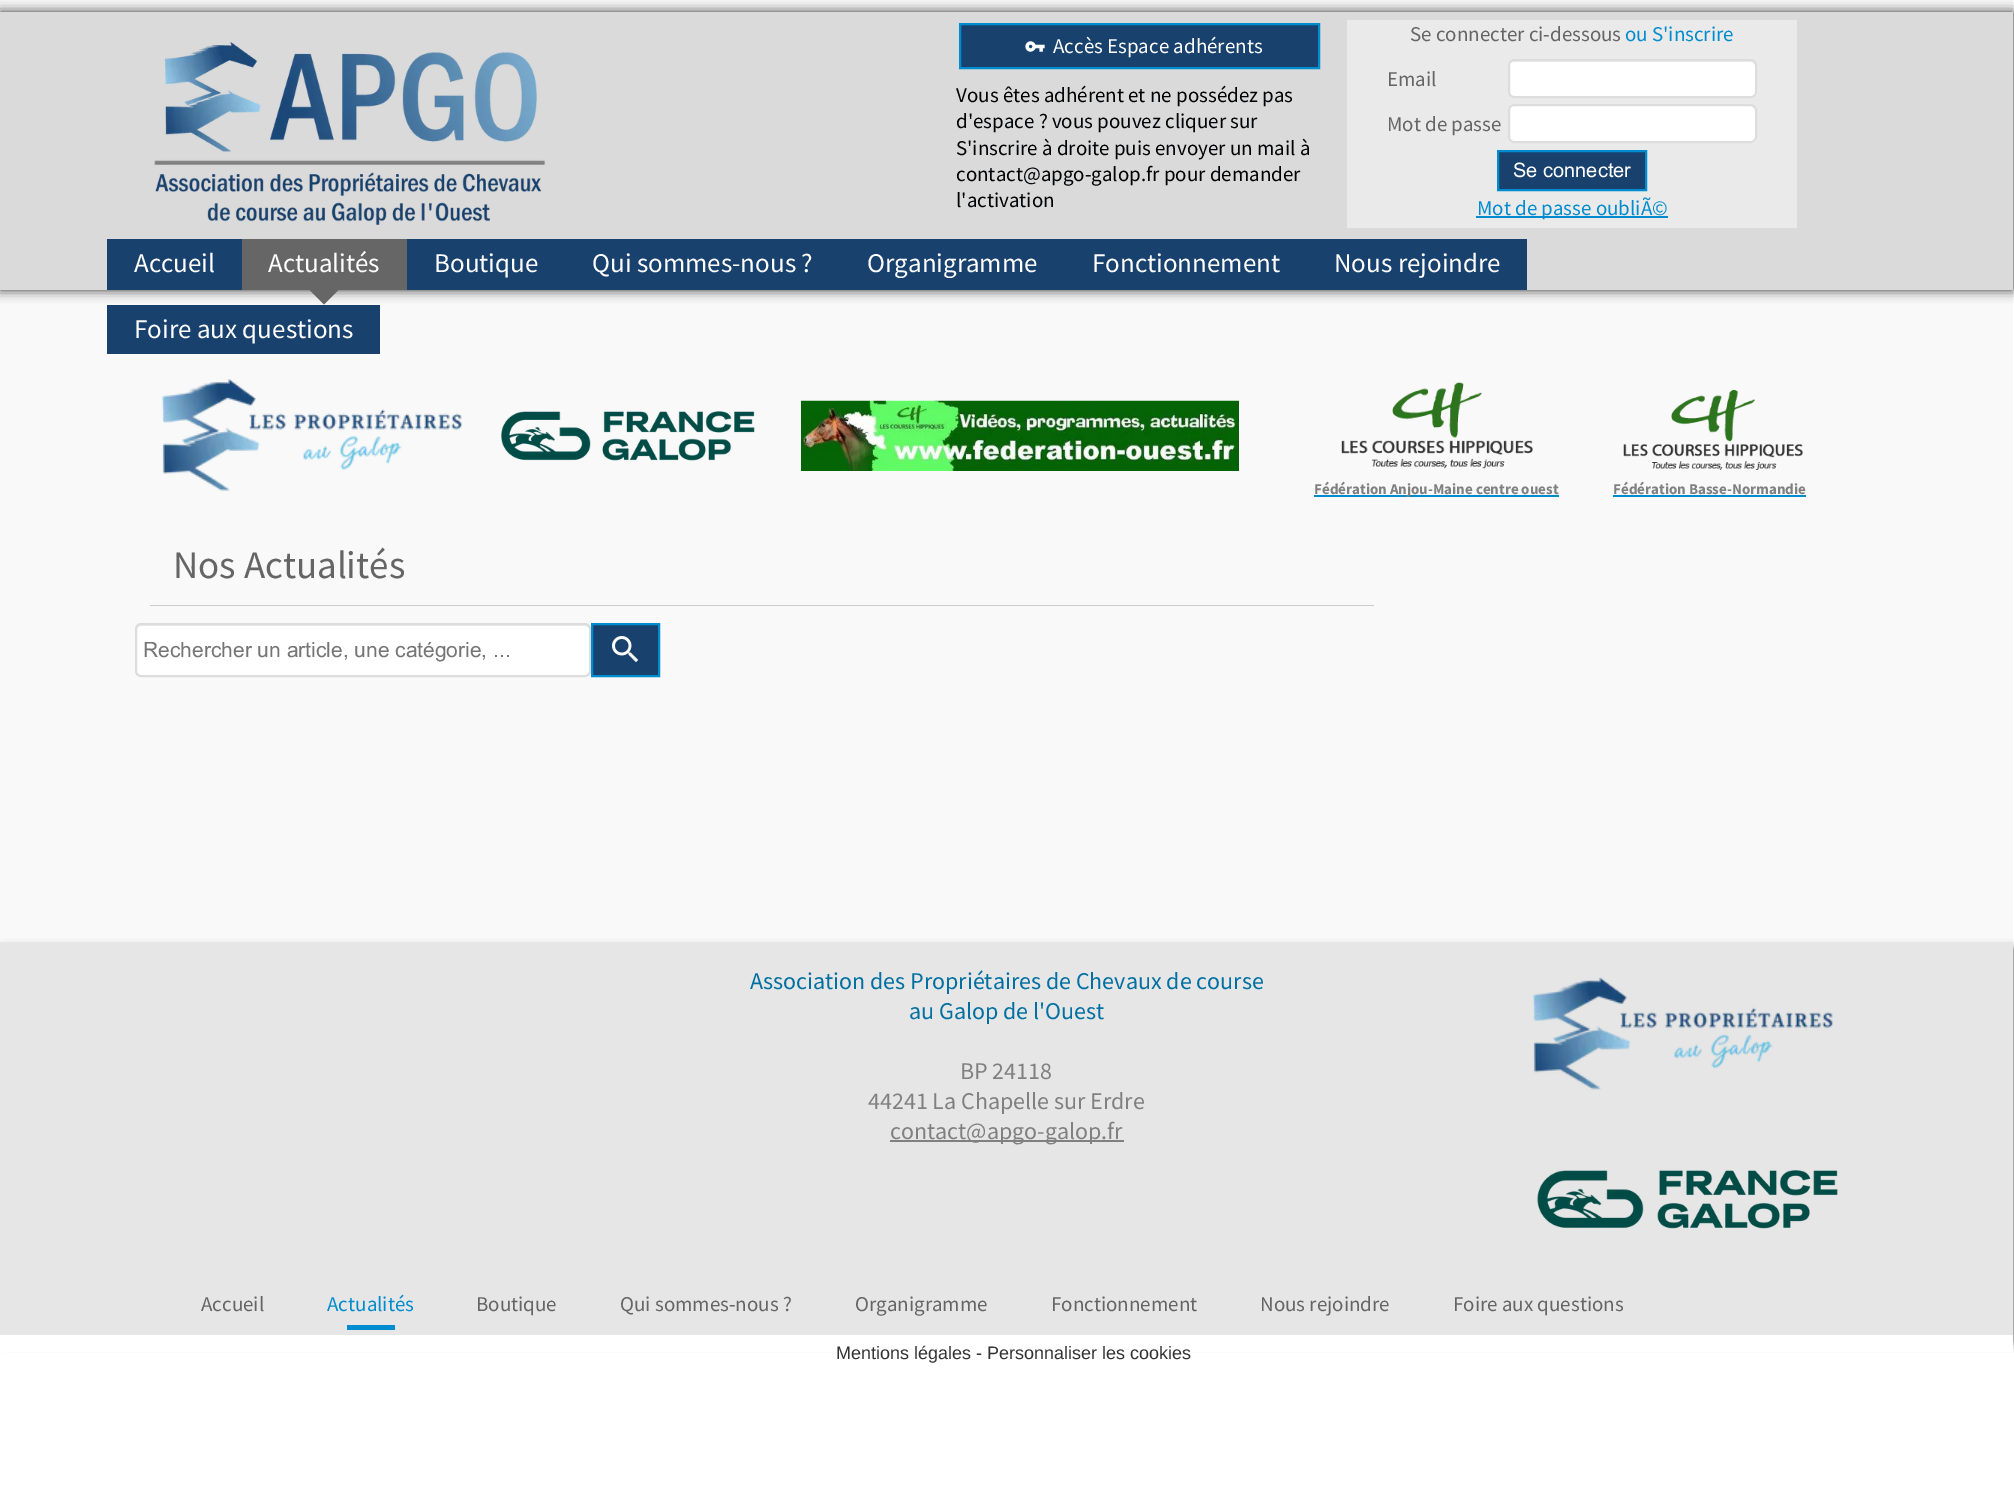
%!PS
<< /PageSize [2014 1494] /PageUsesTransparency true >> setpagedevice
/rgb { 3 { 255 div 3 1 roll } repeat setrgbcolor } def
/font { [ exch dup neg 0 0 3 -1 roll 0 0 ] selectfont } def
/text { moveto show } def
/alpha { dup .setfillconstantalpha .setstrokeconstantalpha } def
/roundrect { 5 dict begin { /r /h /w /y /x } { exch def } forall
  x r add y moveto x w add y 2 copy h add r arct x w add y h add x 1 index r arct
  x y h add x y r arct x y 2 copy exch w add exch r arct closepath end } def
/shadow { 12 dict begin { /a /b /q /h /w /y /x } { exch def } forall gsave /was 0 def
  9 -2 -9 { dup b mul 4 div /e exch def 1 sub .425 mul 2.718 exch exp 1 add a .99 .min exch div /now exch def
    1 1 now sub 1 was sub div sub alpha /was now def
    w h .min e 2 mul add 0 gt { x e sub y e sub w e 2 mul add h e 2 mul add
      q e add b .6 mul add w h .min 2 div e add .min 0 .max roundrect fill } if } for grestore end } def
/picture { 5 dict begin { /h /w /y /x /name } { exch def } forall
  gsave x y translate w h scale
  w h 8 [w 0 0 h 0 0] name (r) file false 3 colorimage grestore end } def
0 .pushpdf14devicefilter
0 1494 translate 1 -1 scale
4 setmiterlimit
255 255 255 rgb
0 0 2014 1494 rectfill
249 249 249 rgb
0 0 2013 942 rectfill
51 51 51 rgb
0 12 2013 278 0 6 1 shadow
218 218 218 rgb
0 12 2013 278 rectfill
(img_01.rgb) 154 42 392 183 picture
24 65 109 rgb
960 24 moveto 359 0 rlineto 0 44 rlineto -359 0 rlineto closepath gsave fill grestore
0 140 206 rgb
2 setlinewidth
stroke
(img_02.rgb) 1025 41 20 11 picture
234 234 234 rgb
1347 20 450 208 rectfill
255 255 255 rgb
1508 59 249 39 6 roundrect fill
236 236 236 rgb
1514 62 moveto 236 0 rlineto 3 0 5 2 5 4 rcurveto 0 -1 rlineto 0 -3 -2 -5 -5 -5 rcurveto -236 0 rlineto -3 0 -5 2 -5 5 rcurveto 0 1 rlineto 0 -2 2 -4 5 -4 rcurveto closepath fill
221 221 221 rgb
1509 60 247 37 5 roundrect stroke
255 255 255 rgb
1508 104 249 39 6 roundrect fill
236 236 236 rgb
1514 106 moveto 236 0 rlineto 3 0 5 3 5 5 rcurveto 0 -1 rlineto 0 -3 -2 -5 -5 -5 rcurveto -236 0 rlineto -3 0 -5 2 -5 5 rcurveto 0 1 rlineto 0 -2 2 -5 5 -5 rcurveto closepath fill
221 221 221 rgb
1509 105 247 37 5 roundrect stroke
24 65 109 rgb
1498 151 moveto 148 0 rlineto 0 39 rlineto -148 0 rlineto closepath gsave fill grestore
0 140 206 rgb
stroke
1476 216 192 2 rectfill
24 65 109 rgb
107 239 135 51 rectfill
102 102 102 rgb
242 239 165 51 rectfill
309 289.5 moveto 30 0 rlineto -15 15 rlineto closepath fill
24 65 109 rgb
407 239 1120 51 rectfill
107 305 273 49 rectfill
(img_03.rgb) 161 379 301 112 picture
(img_04.rgb) 501 411 254 50 picture
(img_05.rgb) 801 400 438 71 picture
(img_06.rgb) 1341 382 192 87 picture
(img_07.rgb) 1623 390 180 81 picture
0 140 206 rgb
1314 495 245 2 rectfill
1613 495 193 2 rectfill
204 204 204 rgb
150 605 1224 1 rectfill
255 255 255 rgb
135 623 456 54 6 roundrect fill
236 236 236 rgb
141 626 moveto 444 0 rlineto 2 0 5 2 5 4 rcurveto 0 -1 rlineto 0 -3 -2 -5 -5 -5 rcurveto -443 0 rlineto -2 0 -4 2 -5 4 rcurveto 1 -1 3 -2 4 -2 rcurveto closepath fill
221 221 221 rgb
136 624 454 52 5 roundrect stroke
24 65 109 rgb
592 624 moveto 67 0 rlineto 0 52 rlineto -67 0 rlineto closepath gsave fill grestore
0 140 206 rgb
stroke
(img_08.rgb) 612 636 27 27 picture
0 0 0 rgb
5 947 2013 397 0 4 0.4 shadow
230 230 230 rgb
0 942 2013 393 rectfill
128 128 128 rgb
890 1140 234 2 rectfill
(img_09.rgb) 1532 977 301 113 picture
(img_10.rgb) 1537 1170 301 59 picture
0 140 206 rgb
347 1325 48 5 rectfill
255 255 255 rgb
0 1335 2013 17 rectfill
/SourceSansPro-Regular 21 font
(Accès Espace adhérents) 1053 53 text
101 101 101 rgb
(Se connecter ci-dessous) 1410 41 text
0 140 206 rgb
(ou S'inscrire) 1625 41 text
101 101 101 rgb
(Email) 1387 86 text
(Mot de passe) 1387 131 text
/Arial-Regular 20 font
255 255 255 rgb
(Se connecter) 1513 177 text
/SourceSansPro-Regular 21 font
0 140 206 rgb
(Mot de passe oubliÃ©) 1477 215 text
1 2 4 rgb
(Vous êtes adhérent et ne possédez pas) 956 102 text
(d'espace ? vous pouvez cliquer sur) 956 128 text
(S'inscrire à droite puis envoyer un mail à) 956 155 text
(contact@apgo-galop.fr pour demander) 956 181 text
(l'activation) 956 207 text
/SourceSansPro-Regular 27 font
255 255 255 rgb
(Accueil) 134 272 text
(Actualités) 268 272 text
(Boutique) 434 272 text
(Qui sommes-nous ?) 592 272 text
(Organigramme) 867 272 text
(Fonctionnement) 1092 272 text
(Nous rejoindre) 1334 272 text
(Foire aux questions) 134 338 text
/SourceSansPro-Bold 15 font
128 128 128 rgb
(Fédération Anjou-Maine centre ouest) 1314 494 text
(Fédération Basse-Normandie) 1613 494 text
/SourceSansPro-Regular 39 font
101 101 101 rgb
(Nos Actualités) 173 578 text
/Arial-Regular 21 font
117 117 117 rgb
(Rechercher un article, une catégorie, ...) 143 657 text
/SourceSansPro-Regular 24 font
0 112 163 rgb
(Association des Propriétaires de Chevaux de course) 750 989 text
(au Galop de l'Ouest) 909 1019 text
128 128 128 rgb
(BP 24118) 960 1079 text
(44241 La Chapelle sur Erdre) 868 1109 text
(contact@apgo-galop.fr) 890 1139 text
/SourceSansPro-Regular 21 font
101 101 101 rgb
(Accueil) 201 1311 text
0 140 206 rgb
(Actualités) 327 1311 text
101 101 101 rgb
(Boutique) 476 1311 text
(Qui sommes-nous ?) 620 1311 text
(Organigramme) 855 1311 text
(Fonctionnement) 1051 1311 text
(Nous rejoindre) 1260 1311 text
(Foire aux questions) 1453 1311 text
/LiberationSans-Regular 18 font
51 51 51 rgb
(Mentions légales - Personnaliser les cookies) 836 1359 text
.poppdf14devicefilter showpage
